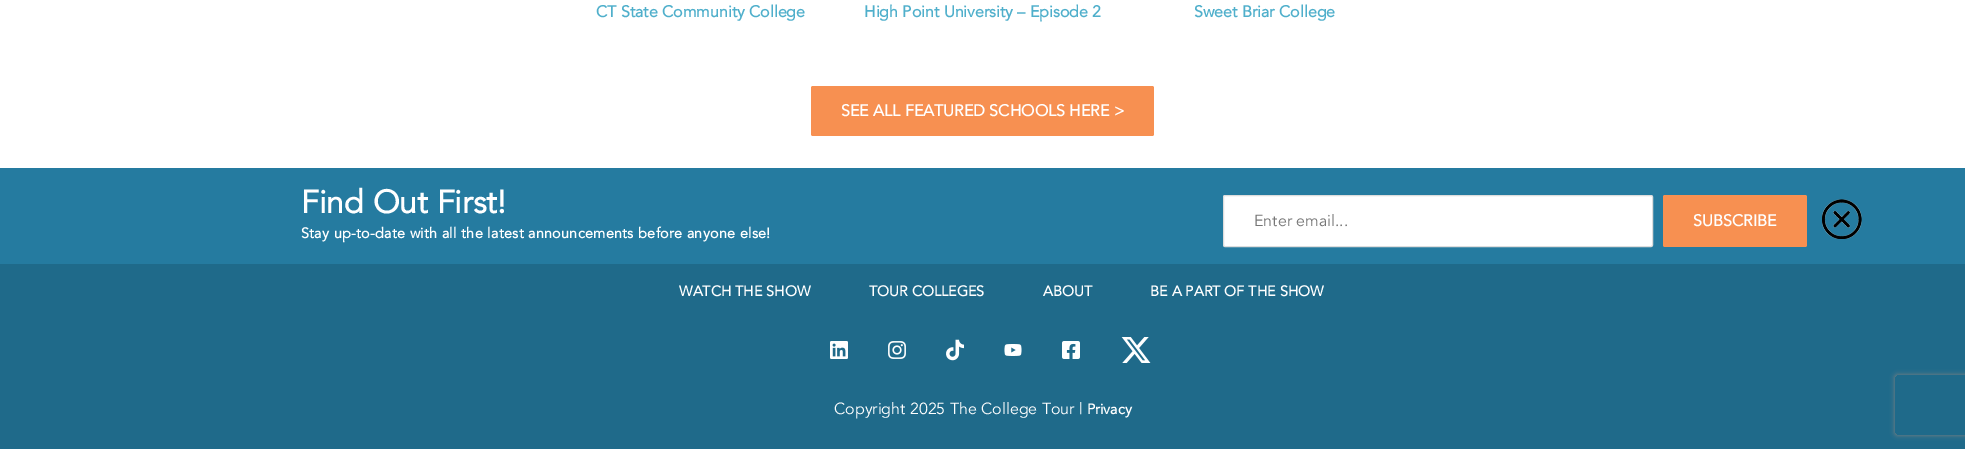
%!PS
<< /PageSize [1965 449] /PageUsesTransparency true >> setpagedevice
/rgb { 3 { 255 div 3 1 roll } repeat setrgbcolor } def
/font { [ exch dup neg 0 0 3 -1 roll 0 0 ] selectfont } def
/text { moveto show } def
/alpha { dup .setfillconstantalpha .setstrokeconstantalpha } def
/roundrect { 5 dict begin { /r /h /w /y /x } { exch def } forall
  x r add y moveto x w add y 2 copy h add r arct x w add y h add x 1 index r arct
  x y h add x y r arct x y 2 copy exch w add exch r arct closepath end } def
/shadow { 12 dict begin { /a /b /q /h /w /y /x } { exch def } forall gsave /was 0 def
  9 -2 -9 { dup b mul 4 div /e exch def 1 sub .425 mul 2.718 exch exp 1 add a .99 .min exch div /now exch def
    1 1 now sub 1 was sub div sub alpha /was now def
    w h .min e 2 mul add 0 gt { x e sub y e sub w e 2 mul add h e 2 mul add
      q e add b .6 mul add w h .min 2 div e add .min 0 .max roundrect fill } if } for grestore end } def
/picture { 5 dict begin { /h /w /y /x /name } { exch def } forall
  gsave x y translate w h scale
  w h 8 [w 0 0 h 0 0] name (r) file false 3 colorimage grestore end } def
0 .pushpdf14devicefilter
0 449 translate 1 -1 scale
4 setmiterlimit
255 255 255 rgb
0 0 1965 449 rectfill
247 144 81 rgb
811 86 343 50 2 roundrect fill
37 123 160 rgb
0 168 1965 96 rectfill
255 255 255 rgb
1223.5 195.5 429 51 1.5 roundrect gsave fill grestore
221 221 221 rgb
stroke
247 144 81 rgb
1663 195 144 52 2 roundrect fill
(img_01.rgb) 1822 199 40 40 picture
31 106 138 rgb
0 264 1965 185 rectfill
(img_02.rgb) 830 341 18 18 picture
(img_03.rgb) 888 341 18 18 picture
(img_04.rgb) 946 339 18 22 picture
(img_05.rgb) 1004 344 18 12 picture
(img_06.rgb) 1062 341 18 18 picture
(img_07.rgb) 1121 337 30 26 picture
gsave
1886 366 moveto 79 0 rlineto 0 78 rlineto -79 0 rlineto closepath 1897 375 moveto 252 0 rlineto 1 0 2 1 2 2 rcurveto 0 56 rlineto 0 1 -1 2 -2 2 rcurveto -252 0 rlineto -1 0 -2 -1 -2 -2 rcurveto 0 -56 rlineto 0 -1 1 -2 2 -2 rcurveto closepath eoclip newpath
128 128 128 rgb
1895 375 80 60 2 2.5 1 shadow
grestore
/Avenir-Bold 16 font
79 175 203 rgb
(CT State Community College) 596 17 text
(High Point University – Episode 2) 864 17 text
(Sweet Briar College) 1194 17 text
255 255 255 rgb
(SEE ALL FEATURED SCHOOLS HERE >) 841 116 text
/Avenir-Bold 32 font
(Find Out First!) 301 213 text
/Avenir-Bold 14.4 font
301 238 moveto 0.3 0 (Stay up-to-date with all the latest announcements before anyone else!) ashow
/Avenir-Regular 16 font
117 117 117 rgb
(Enter email...) 1254 226 text
/Avenir-Bold 16 font
255 255 255 rgb
(SUBSCRIBE) 1693 226 text
/Avenir-Bold 14.4 font
(WATCH THE SHOW) 679 296 text
(TOUR COLLEGES) 869 296 text
(ABOUT) 1043 296 text
(BE A PART OF THE SHOW) 1150 296 text
/Avenir-Regular 16 font
(Copyright 2025 The College Tour |) 834 414 text
/Avenir-Bold 14.4 font
(Privacy) 1087 414 text
.poppdf14devicefilter showpage
